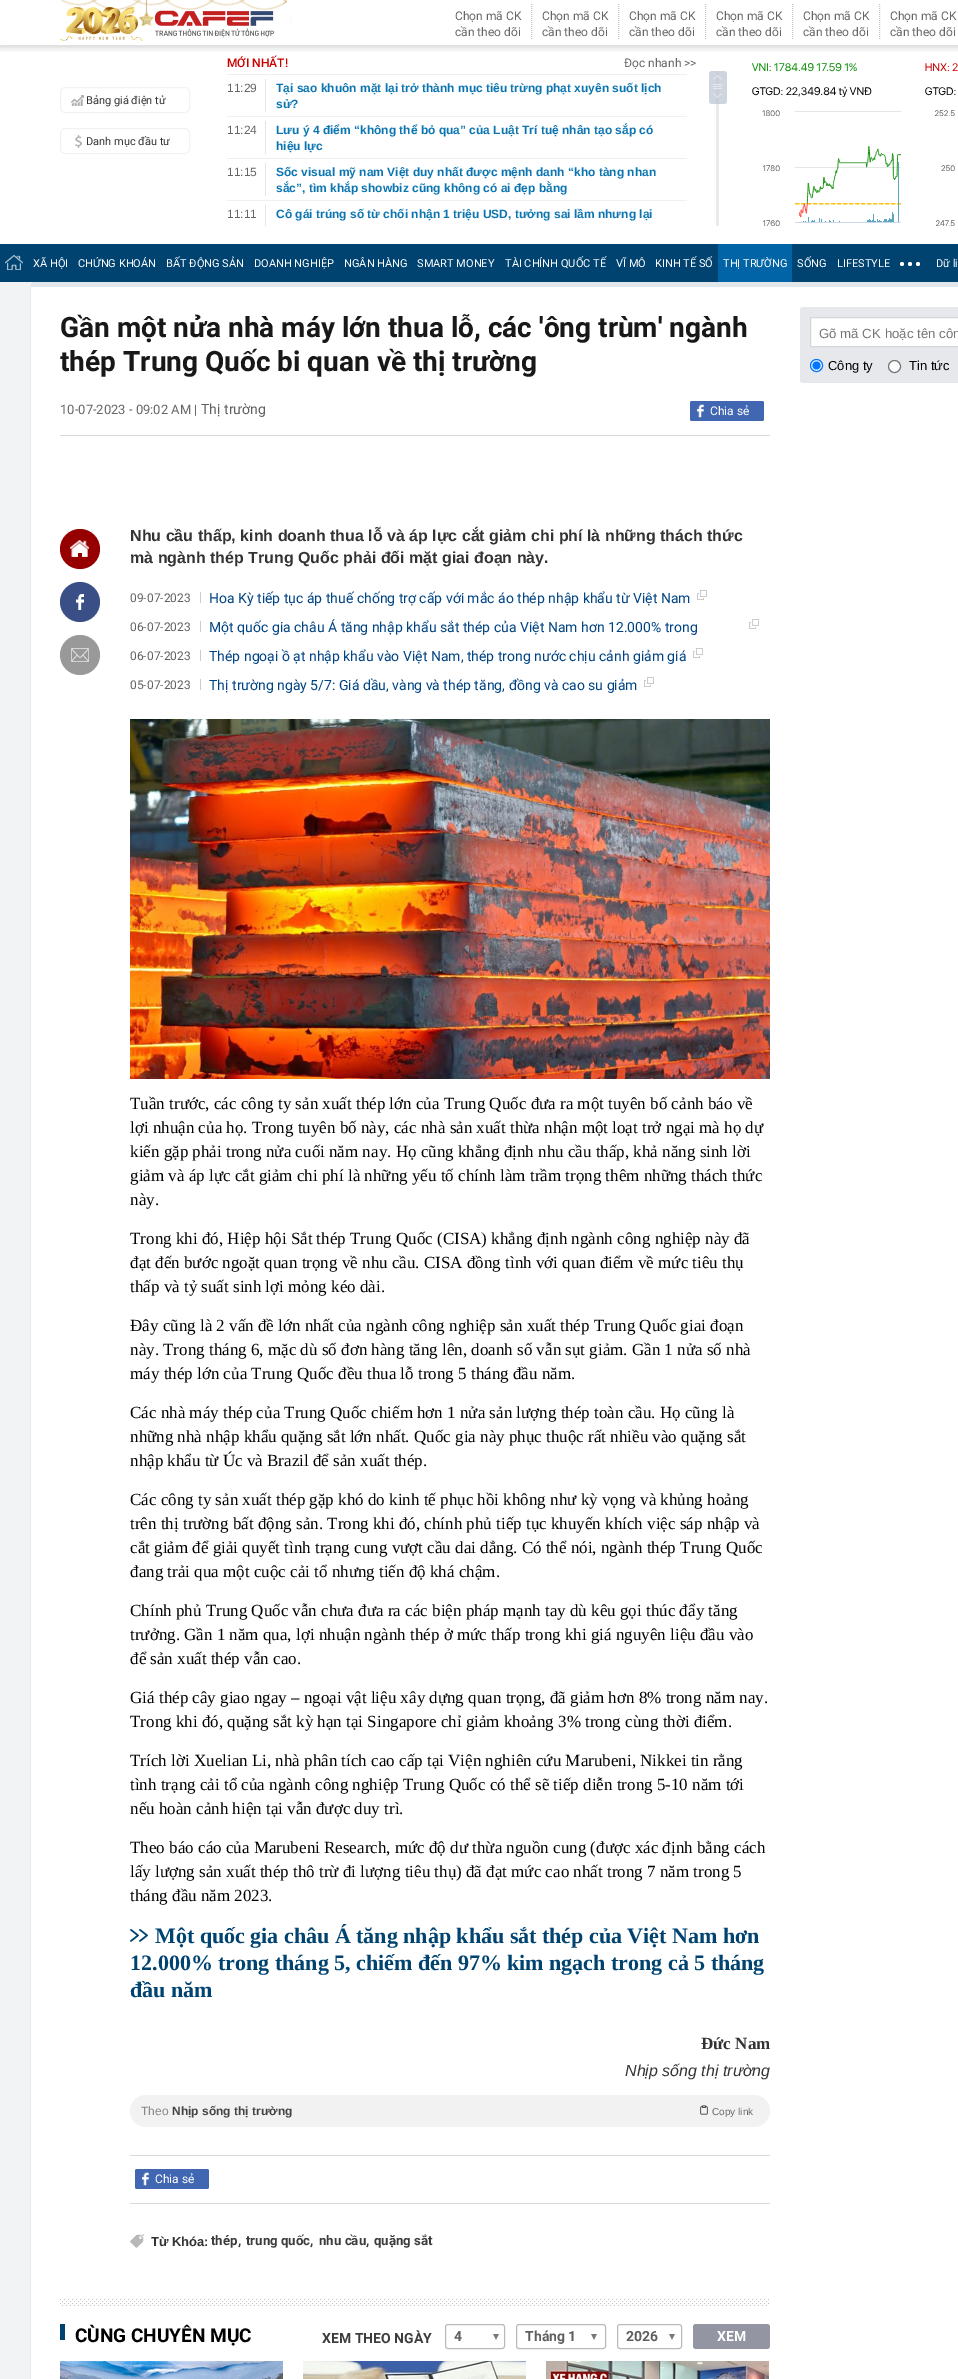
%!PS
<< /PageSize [958 2379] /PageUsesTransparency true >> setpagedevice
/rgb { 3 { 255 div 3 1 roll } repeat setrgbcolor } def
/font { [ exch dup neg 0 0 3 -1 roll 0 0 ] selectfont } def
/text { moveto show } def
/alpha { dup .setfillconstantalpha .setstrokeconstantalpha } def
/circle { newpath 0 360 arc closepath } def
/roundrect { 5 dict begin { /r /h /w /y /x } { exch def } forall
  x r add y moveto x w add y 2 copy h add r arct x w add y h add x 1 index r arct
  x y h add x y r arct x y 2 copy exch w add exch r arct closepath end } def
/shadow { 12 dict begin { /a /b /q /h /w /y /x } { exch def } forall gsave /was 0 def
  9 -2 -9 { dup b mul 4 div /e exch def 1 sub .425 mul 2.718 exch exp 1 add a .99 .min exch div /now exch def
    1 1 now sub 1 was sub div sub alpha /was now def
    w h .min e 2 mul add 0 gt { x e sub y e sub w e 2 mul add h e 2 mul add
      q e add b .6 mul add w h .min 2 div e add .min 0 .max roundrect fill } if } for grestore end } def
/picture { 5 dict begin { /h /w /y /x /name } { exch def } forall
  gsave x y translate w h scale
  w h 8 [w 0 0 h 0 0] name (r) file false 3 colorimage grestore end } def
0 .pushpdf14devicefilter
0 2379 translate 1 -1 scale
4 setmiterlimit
255 255 255 rgb
0 0 958 2379 rectfill
gsave
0 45 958 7 rectclip
51 51 51 rgb
0 -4 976 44 0 6 1 shadow
grestore
(img_01.rgb) 60 0 232 41 picture
194 194 194 rgb
[1 1] 0 setdash
531.5 4 moveto 0 36 rlineto stroke
618.5 4 moveto 0 36 rlineto stroke
705.5 4 moveto 0 36 rlineto stroke
792.5 4 moveto 0 36 rlineto stroke
879.5 4 moveto 0 36 rlineto stroke
255 255 255 rgb
0 44 958 1 rectfill
242 242 242 rgb
[] 0 setdash
60.5 87.5 129 25 4.5 roundrect stroke
(img_02.rgb) 71 95 13 11 picture
(img_03.rgb) 75 135 7 13 picture
60.5 128.5 129 25 4.5 roundrect stroke
232 235 238 rgb
716 71 3 155 1.5 roundrect fill
0.7 alpha
187 195 208 rgb
709 71 18 33 3 roundrect fill
1 alpha
(img_04.rgb) 713 75 9 23 picture
240 240 240 rgb
227 74 460 1 rectfill
228 228 228 rgb
265 79 1 33 rectfill
240 240 240 rgb
227 116 460 1 rectfill
228 228 228 rgb
265 121 1 33 rectfill
240 240 240 rgb
227 158 460 1 rectfill
228 228 228 rgb
265 163 1 33 rectfill
240 240 240 rgb
227 200 460 1 rectfill
228 228 228 rgb
265 205 1 21 rectfill
(img_05.rgb) 752 63 206 163 picture
0 67 112 rgb
0 244 958 38 rectfill
(img_06.rgb) 5 255 18 15 picture
0 100 166 rgb
718 244 74 38 rectfill
255 255 255 rgb
902 264 2 circle fill
910 264 2 circle fill
918 264 2 circle fill
242 243 245 rgb
0 282 35 2097 rectfill
255 255 255 rgb
35 287 moveto 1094 0 rlineto 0 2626 rlineto 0 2 -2 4 -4 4 rcurveto -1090 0 rlineto -2 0 -4 -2 -4 -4 rcurveto 0 -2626 rlineto closepath fill
226 231 236 rgb
35 282 moveto -2 0 -4 1 -4 3 rcurveto 0 2 rlineto 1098 0 rlineto 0 -2 rlineto 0 -2 -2 -3 -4 -3 rcurveto closepath fill
231 232 234 rgb
30 287 moveto 0 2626 rlineto 0 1 0 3 1 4 rcurveto 1 -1 rlineto 0 -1 -1 -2 -1 -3 rcurveto 0 -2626 rlineto 0 -2 rlineto closepath fill
217 217 217 rgb
60 435 710 1 rectfill
65 103 178 rgb
690 401 74 20 2 roundrect fill
(img_07.rgb) 697 404 7 14 picture
151 0 0 rgb
80 549 20 circle fill
(img_08.rgb) 70 540 19 17 picture
59 79 135 rgb
80 602 20 circle fill
(img_09.rgb) 76 594 8 16 picture
153 153 153 rgb
80 655 20 circle fill
(img_10.rgb) 71 648 18 14 picture
204 204 204 rgb
200 592 1 11 rectfill
(img_11.rgb) 697 590 10 10 picture
200 621 1 11 rectfill
(img_12.rgb) 749 619 10 10 picture
200 650 1 11 rectfill
(img_11.rgb) 693 648 10 10 picture
200 679 1 11 rectfill
(img_11.rgb) 644 677 10 10 picture
(img_13.rgb) 130 719 640 360 picture
(img_14.rgb) 130 1929 18 13 picture
242 242 242 rgb
130 2095 640 32 16 roundrect fill
(img_15.rgb) 700 2105 8 10 picture
217 217 217 rgb
130 2155 640 1 rectfill
130 2203 640 1 rectfill
65 103 178 rgb
135 2169 74 20 2 roundrect fill
(img_16.rgb) 142 2172 7 14 picture
(img_17.rgb) 130 2234 14 14 picture
(img_18.rgb) 60 2299 710 7 picture
0 67 112 rgb
60 2324 5 16 rectfill
(img_19.rgb) 493 2334 6 6 picture
186 186 186 rgb
445.5 2324.5 59 24 2.5 roundrect stroke
(img_19.rgb) 591 2334 6 6 picture
516.5 2324.5 89 24 2.5 roundrect stroke
(img_19.rgb) 669 2334 6 6 picture
617.5 2324.5 64 24 2.5 roundrect stroke
147 150 162 rgb
693 2324 77 25 3 roundrect fill
(img_20.rgb) 60 2361 223 18 picture
(img_21.rgb) 303 2361 223 18 picture
(img_22.rgb) 546 2361 223 18 picture
230 232 236 rgb
800 307 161 76 3 roundrect fill
255 255 255 rgb
810.5 317.5 moveto 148 0 rlineto 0 29 rlineto -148 0 rlineto closepath gsave fill grestore
212 214 217 rgb
stroke
255 255 255 rgb
816.5 365.5 6 circle gsave fill grestore
0 117 255 rgb
stroke
816.5 365.5 4 circle fill
255 255 255 rgb
894.5 366.5 6 circle gsave fill grestore
118 118 118 rgb
stroke
/Roboto-Regular 12 font
102 102 102 rgb
(Chọn mã CK) 455 20 text
(cần theo dõi) 455 36 text
(Chọn mã CK) 542 20 text
(cần theo dõi) 542 36 text
(Chọn mã CK) 629 20 text
(cần theo dõi) 629 36 text
(Chọn mã CK) 716 20 text
(cần theo dõi) 716 36 text
(Chọn mã CK) 803 20 text
(cần theo dõi) 803 36 text
(Chọn mã CK) 890 20 text
(cần theo dõi) 890 36 text
/Roboto-Regular 11 font
51 51 51 rgb
(Bảng giá điện tử) 86 104 text
(Danh mục đầu tư) 86 145 text
/Roboto-Medium 12 font
201 0 0 rgb
(MỚI NHẤT!) 227 67 text
/Roboto-Regular 12 font
102 102 102 rgb
(Đọc nhanh >>) 624 67 text
/LiberationSans-Regular 12 font
(11:29) 227 92 text
/LiberationSans-Bold 12 font
11 117 177 rgb
(Tại sao khuôn mặt lại trở thành mục tiêu trừng phạt xuyên suốt lịch) 276 92 text
(sử?) 276 108 text
/LiberationSans-Regular 12 font
102 102 102 rgb
(11:24) 227 134 text
/LiberationSans-Bold 12 font
11 117 177 rgb
(Lưu ý 4 điểm “không thể bỏ qua” của Luật Trí tuệ nhân tạo sắp có) 276 134 text
(hiệu lực) 276 150 text
/LiberationSans-Regular 12 font
102 102 102 rgb
(11:15) 227 176 text
/LiberationSans-Bold 12 font
11 117 177 rgb
(Sốc visual mỹ nam Việt duy nhất được mệnh danh “kho tàng nhan) 276 176 text
(sắc”, tìm khắp showbiz cũng không có ai đẹp bằng) 276 192 text
/LiberationSans-Regular 12 font
102 102 102 rgb
(11:11) 227 218 text
/LiberationSans-Bold 12 font
11 117 177 rgb
(Cô gái trúng số từ chối nhận 1 triệu USD, tưởng sai lầm nhưng lại) 276 218 text
/Roboto-Regular 11 font
255 255 255 rgb
(XÃ HỘI) 33 267 text
(CHỨNG KHOÁN) 78 267 text
(BẤT ĐỘNG SẢN) 166 267 text
(DOANH NGHIỆP) 254 267 text
(NGÂN HÀNG) 344 267 text
(SMART MONEY) 417 267 text
(TÀI CHÍNH QUỐC TẾ) 505 267 text
(VĨ MÔ) 616 267 text
(KINH TẾ SỐ) 655 267 text
(THỊ TRƯỜNG) 723 267 text
(SỐNG) 797 267 text
(LIFESTYLE) 837 267 text
(Dữ li) 936 267 text
/Roboto-Bold 28 font
24 24 24 rgb
(Gần một nửa nhà máy lớn thua lỗ, các 'ông trùm' ngành) 60 337 text
(thép Trung Quốc bi quan về thị trường) 60 371 text
/Roboto-Regular 13 font
102 102 102 rgb
(10-07-2023 - 09:02 AM |) 60 414 text
/Roboto-Regular 14 font
95 95 95 rgb
(Thị trường) 201 414 text
/Roboto-Regular 12 font
255 255 255 rgb
(Chia sẻ) 710 415 text
/LiberationSans-Bold 16 font
51 51 51 rgb
(Nhu cầu thấp, kinh doanh thua lỗ và áp lực cắt giảm chi phí là những thách thức) 130 541 text
(mà ngành thép Trung Quốc phải đối mặt giai đoạn này.) 130 563 text
/Roboto-Regular 12 font
95 95 95 rgb
(09-07-2023) 130 602 text
/Roboto-Regular 14 font
0 67 131 rgb
(Hoa Kỳ tiếp tục áp thuế chống trợ cấp với mắc áo thép nhập khẩu từ Việt Nam) 209 603 text
/Roboto-Regular 12 font
95 95 95 rgb
(06-07-2023) 130 631 text
/Roboto-Regular 14 font
0 67 131 rgb
(Một quốc gia châu Á tăng nhập khẩu sắt thép của Việt Nam hơn 12.000% trong) 209 632 text
/Roboto-Regular 12 font
95 95 95 rgb
(06-07-2023) 130 660 text
/Roboto-Regular 14 font
0 67 131 rgb
(Thép ngoại ồ ạt nhập khẩu vào Việt Nam, thép trong nước chịu cảnh giảm giá) 209 661 text
/Roboto-Regular 12 font
95 95 95 rgb
(05-07-2023) 130 689 text
/Roboto-Regular 14 font
0 67 131 rgb
(Thị trường ngày 5/7: Giá dầu, vàng và thép tăng, đồng và cao su giảm) 209 690 text
/LiberationSerif-Regular 17 font
0 0 0 rgb
(Tuần trước, các công ty sản xuất thép lớn của Trung Quốc đưa ra một tuyên bố cảnh báo về) 130 1109 text
(lợi nhuận của họ. Trong tuyên bố này, các nhà sản xuất thừa nhận một loạt trở ngại mà họ dự) 130 1133 text
(kiến gặp phải trong nửa cuối năm nay. Họ cũng khẳng định nhu cầu thấp, khả năng sinh lời) 130 1157 text
(giảm và áp lực cắt giảm chi phí là những yếu tố chính làm trầm trọng thêm những thách thức) 130 1181 text
(này.) 130 1205 text
(Trong khi đó, Hiệp hội Sắt thép Trung Quốc \(CISA\) khẳng định ngành công nghiệp này đã) 130 1244 text
(đạt đến bước ngoặt quan trọng về nhu cầu. CISA đồng tình với quan điểm về mức tiêu thụ) 130 1268 text
(thấp và tỷ suất sinh lợi mỏng kéo dài.) 130 1292 text
(Đây cũng là 2 vấn đề lớn nhất của ngành công nghiệp sản xuất thép Trung Quốc giai đoạn) 130 1331 text
(này. Trong tháng 6, mặc dù số đơn hàng tăng lên, doanh số vẫn sụt giảm. Gần 1 nửa số nhà) 130 1355 text
(máy thép lớn của Trung Quốc đều thua lỗ trong 5 tháng đầu năm.) 130 1379 text
(Các nhà máy thép của Trung Quốc chiếm hơn 1 nửa sản lượng thép toàn cầu. Họ cũng là) 130 1418 text
(những nhà nhập khẩu quặng sắt lớn nhất. Quốc gia này phục thuộc rất nhiều vào quặng sắt) 130 1442 text
(nhập khẩu từ Úc và Brazil để sản xuất thép.) 130 1466 text
(Các công ty sản xuất thép gặp khó do kinh tế phục hồi không như kỳ vọng và khủng hoảng) 130 1505 text
(trên thị trường bất động sản. Trong khi đó, chính phủ tiếp tục khuyến khích việc sáp nhập và) 130 1529 text
(cắt giảm để giải quyết tình trạng cung vượt cầu dai dẳng. Có thể nói, ngành thép Trung Quốc) 130 1553 text
(đang trải qua một cuộc cải tổ nhưng tiến độ khá chậm.) 130 1577 text
(Chính phủ Trung Quốc vẫn chưa đưa ra các biện pháp mạnh tay dù kêu gọi thúc đẩy tăng) 130 1616 text
(trưởng. Gần 1 năm qua, lợi nhuận ngành thép ở mức thấp trong khi giá nguyên liệu đầu vào) 130 1640 text
(để sản xuất thép vẫn cao.) 130 1664 text
(Giá thép cây giao ngay – ngoại vật liệu xây dựng quan trọng, đã giảm hơn 8% trong năm nay.) 130 1703 text
(Trong khi đó, quặng sắt kỳ hạn tại Singapore chỉ giảm khoảng 3% trong cùng thời điểm.) 130 1727 text
(Trích lời Xuelian Li, nhà phân tích cao cấp tại Viện nghiên cứu Marubeni, Nikkei tin rằng) 130 1766 text
(tình trạng cải tổ của ngành công nghiệp Trung Quốc có thể sẽ tiếp diễn trong 5-10 năm tới) 130 1790 text
(nếu hoàn cảnh hiện tại vẫn được duy trì.) 130 1814 text
(Theo báo cáo của Marubeni Research, mức độ dư thừa nguồn cung \(được xác định bằng cách) 130 1853 text
(lấy lượng sản xuất thép thô trừ đi lượng tiêu thụ\) đã đạt mức cao nhất trong 7 năm trong 5) 130 1877 text
(tháng đầu năm 2023.) 130 1901 text
/LiberationSerif-Bold 22 font
0 67 112 rgb
(Một quốc gia châu Á tăng nhập khẩu sắt thép của Việt Nam hơn) 155 1943 text
(12.000% trong tháng 5, chiếm đến 97% kim ngạch trong cả 5 tháng) 130 1970 text
(đầu năm) 130 1997 text
/LiberationSerif-Bold 17 font
51 51 51 rgb
(Đức Nam) 701 2049 text
/LiberationSans-Italic 16 font
(Nhịp sống thị trường) 625 2076 text
/LiberationSans-Regular 12 font
136 136 136 rgb
(Theo) 141 2115 text
/LiberationSans-Bold 12 font
68 68 68 rgb
(Nhịp sống thị trường) 172 2115 text
/LiberationSans-Regular 10 font
102 102 102 rgb
(Copy link) 712 2115 text
/Roboto-Regular 12 font
255 255 255 rgb
(Chia sẻ) 155 2183 text
/LiberationSans-Bold 13 font
51 51 51 rgb
(Từ Khóa:) 151 2246 text
/Roboto-Bold 13.25 font
61 61 61 rgb
(thép,) 211 2245 text
(trung quốc,) 246 2245 text
(nhu cầu,) 319 2245 text
(quặng sắt) 374 2245 text
/Roboto-Bold 19 font
0 0 0 rgb
(CÙNG CHUYÊN MỤC) 75 2342 text
/Roboto-Bold 14 font
61 61 61 rgb
(XEM THEO NGÀY) 322 2343 text
95 95 95 rgb
(4) 454 2341 text
(Tháng 1) 525 2341 text
(2026) 626 2341 text
255 255 255 rgb
(XEM) 717 2341 text
/LiberationSans-Regular 13.25 font
117 117 117 rgb
(Gõ mã CK hoặc tên côn) 819 338 text
/LiberationSans-Regular 13 font
0 0 0 rgb
(Công ty) 828 370 text
(Tin tức) 909 370 text
.poppdf14devicefilter showpage
